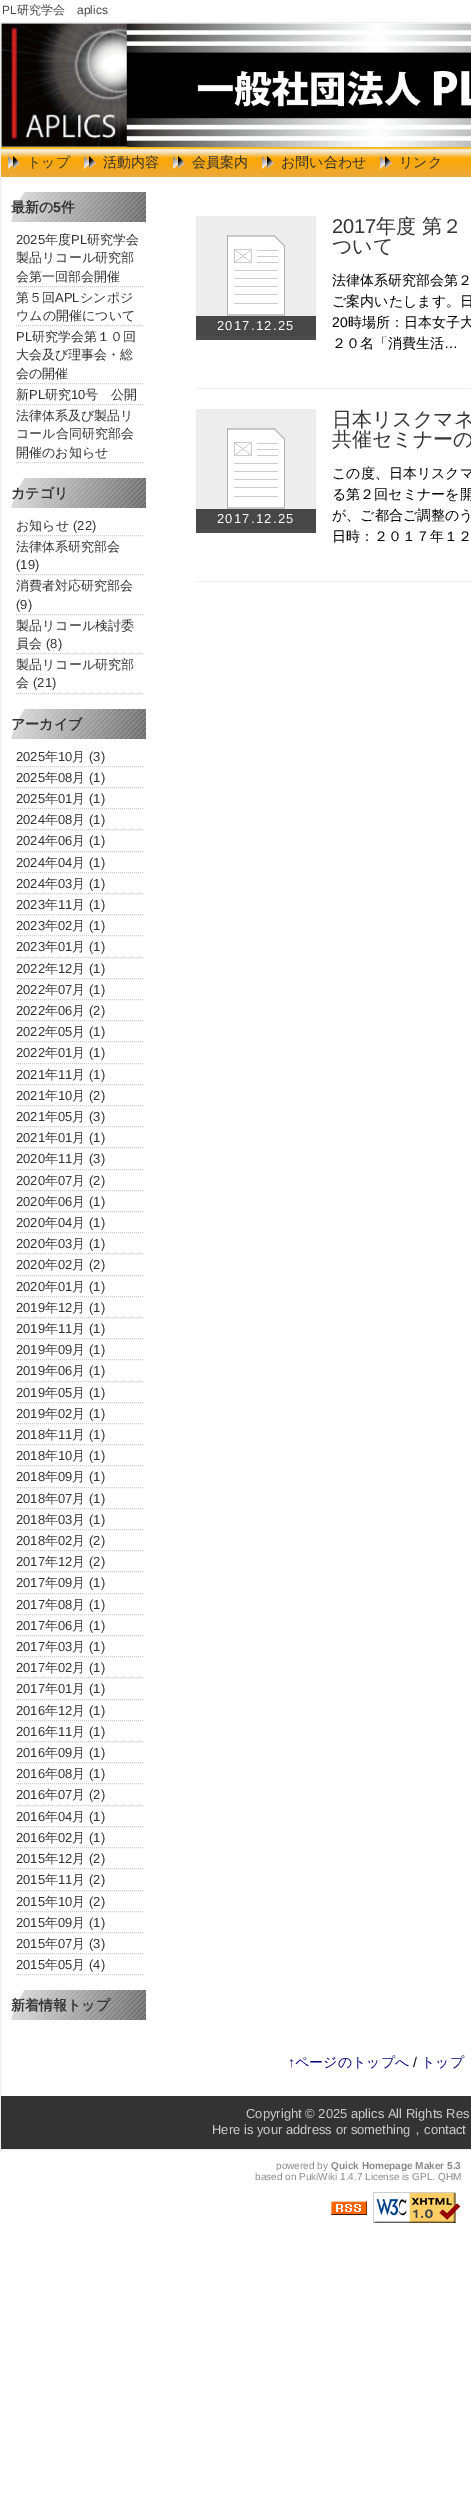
%!PS
<< /PageSize [471 2520] /PageUsesTransparency true >> setpagedevice
/rgb { 3 { 255 div 3 1 roll } repeat setrgbcolor } def
/font { [ exch dup neg 0 0 3 -1 roll 0 0 ] selectfont } def
/text { moveto show } def
/alpha { dup .setfillconstantalpha .setstrokeconstantalpha } def
/picture { 5 dict begin { /h /w /y /x /name } { exch def } forall
  gsave x y translate w h scale
  w h 8 [w 0 0 h 0 0] name (r) file false 3 colorimage grestore end } def
0 .pushpdf14devicefilter
0 2520 translate 1 -1 scale
4 setmiterlimit
255 255 255 rgb
0 0 471 2520 rectfill
238 238 238 rgb
0.5 22.5 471 2127 rectstroke
(img_01.rgb) 1 23 470 124 picture
(img_02.rgb) 1 147 470 30 picture
(img_03.rgb) 8 156 12 13 picture
(img_03.rgb) 84 156 12 13 picture
(img_03.rgb) 173 156 12 13 picture
(img_03.rgb) 262 156 12 13 picture
(img_03.rgb) 380 156 12 13 picture
(img_04.rgb) 11 192 135 30 picture
204 204 204 rgb
[1 1] 0 setdash
16 286.5 moveto 128 0 rlineto stroke
16 325.5 moveto 128 0 rlineto stroke
16 383.5 moveto 128 0 rlineto stroke
16 404.5 moveto 128 0 rlineto stroke
16 462.5 moveto 128 0 rlineto stroke
(img_04.rgb) 11 478 135 30 picture
16 535.5 moveto 128 0 rlineto stroke
16 574.5 moveto 128 0 rlineto stroke
16 614.5 moveto 128 0 rlineto stroke
16 653.5 moveto 128 0 rlineto stroke
16 693.5 moveto 128 0 rlineto stroke
(img_04.rgb) 11 709 135 30 picture
16 766.5 moveto 128 0 rlineto stroke
16 787.5 moveto 128 0 rlineto stroke
16 808.5 moveto 128 0 rlineto stroke
16 829.5 moveto 128 0 rlineto stroke
16 851.5 moveto 128 0 rlineto stroke
16 872.5 moveto 128 0 rlineto stroke
16 893.5 moveto 128 0 rlineto stroke
16 914.5 moveto 128 0 rlineto stroke
16 935.5 moveto 128 0 rlineto stroke
16 957.5 moveto 128 0 rlineto stroke
16 978.5 moveto 128 0 rlineto stroke
16 999.5 moveto 128 0 rlineto stroke
16 1020.5 moveto 128 0 rlineto stroke
16 1041.5 moveto 128 0 rlineto stroke
16 1063.5 moveto 128 0 rlineto stroke
16 1084.5 moveto 128 0 rlineto stroke
16 1105.5 moveto 128 0 rlineto stroke
16 1126.5 moveto 128 0 rlineto stroke
16 1147.5 moveto 128 0 rlineto stroke
16 1169.5 moveto 128 0 rlineto stroke
16 1190.5 moveto 128 0 rlineto stroke
16 1211.5 moveto 128 0 rlineto stroke
16 1232.5 moveto 128 0 rlineto stroke
16 1253.5 moveto 128 0 rlineto stroke
16 1275.5 moveto 128 0 rlineto stroke
16 1296.5 moveto 128 0 rlineto stroke
16 1317.5 moveto 128 0 rlineto stroke
16 1338.5 moveto 128 0 rlineto stroke
16 1359.5 moveto 128 0 rlineto stroke
16 1381.5 moveto 128 0 rlineto stroke
16 1402.5 moveto 128 0 rlineto stroke
16 1423.5 moveto 128 0 rlineto stroke
16 1444.5 moveto 128 0 rlineto stroke
16 1465.5 moveto 128 0 rlineto stroke
16 1487.5 moveto 128 0 rlineto stroke
16 1508.5 moveto 128 0 rlineto stroke
16 1529.5 moveto 128 0 rlineto stroke
16 1550.5 moveto 128 0 rlineto stroke
16 1571.5 moveto 128 0 rlineto stroke
16 1593.5 moveto 128 0 rlineto stroke
16 1614.5 moveto 128 0 rlineto stroke
16 1635.5 moveto 128 0 rlineto stroke
16 1656.5 moveto 128 0 rlineto stroke
16 1677.5 moveto 128 0 rlineto stroke
16 1699.5 moveto 128 0 rlineto stroke
16 1720.5 moveto 128 0 rlineto stroke
16 1741.5 moveto 128 0 rlineto stroke
16 1762.5 moveto 128 0 rlineto stroke
16 1783.5 moveto 128 0 rlineto stroke
16 1805.5 moveto 128 0 rlineto stroke
16 1826.5 moveto 128 0 rlineto stroke
16 1847.5 moveto 128 0 rlineto stroke
16 1868.5 moveto 128 0 rlineto stroke
16 1890.5 moveto 128 0 rlineto stroke
16 1911.5 moveto 128 0 rlineto stroke
16 1932.5 moveto 128 0 rlineto stroke
16 1953.5 moveto 128 0 rlineto stroke
16 1974.5 moveto 128 0 rlineto stroke
(img_04.rgb) 11 1990 135 30 picture
238 238 238 rgb
196 388 275 1 rectfill
(img_05.rgb) 196 216 120 120 picture
0.7 alpha
0 0 0 rgb
196 316 120 24 rectfill
1 alpha
238 238 238 rgb
196 581 275 1 rectfill
(img_05.rgb) 196 409 120 120 picture
0.7 alpha
0 0 0 rgb
196 509 120 24 rectfill
1 alpha
51 51 51 rgb
1 2096 470 53 rectfill
(img_06.rgb) 331 2201 36 14 picture
(img_07.rgb) 373 2192 88 31 picture
/LiberationSans-Regular 12 font
68 68 68 rgb
(PL) 2 14 text
/WenQuanYiZenHei-Medium 12 font
(研究学会) 17 14 text
/LiberationSans-Regular 12 font
(aplics) 77 14 text
/WenQuanYiZenHei-Medium 14 font
51 51 51 rgb
(トップ) 27 167 text
(活動内容) 103 167 text
(会員案内) 192 167 text
(お問い合わせ) 281 167 text
(リンク) 399 167 text
/WenQuanYiZenHei-Bold 14 font
(最新の) 11 212 text
/LiberationSans-Bold 14 font
(5) 53 212 text
/WenQuanYiZenHei-Bold 14 font
(件) 61 212 text
/LiberationSans-Regular 13 font
(2025) 16 244 text
/WenQuanYiZenHei-Medium 13 font
(年度) 45 244 text
/LiberationSans-Regular 13 font
(PL) 71 244 text
/WenQuanYiZenHei-Medium 13 font
(研究学会) 87 244 text
(製品リコール研究部) 16 262 text
(会第一回部会開催) 16 281 text
(第５回) 16 302 text
/LiberationSans-Regular 13 font
(APL) 55 302 text
/WenQuanYiZenHei-Medium 13 font
(シンポジ) 80 302 text
(ウムの開催について) 16 320 text
/LiberationSans-Regular 13 font
(PL) 16 341 text
/WenQuanYiZenHei-Medium 13 font
(研究学会第１０回) 32 341 text
(大会及び理事会・総) 16 359 text
(会の開催) 16 378 text
(新) 16 399 text
/LiberationSans-Regular 13 font
(PL) 29 399 text
/WenQuanYiZenHei-Medium 13 font
(研究) 45 399 text
/LiberationSans-Regular 13 font
(10) 71 399 text
/WenQuanYiZenHei-Medium 13 font
(号　公開) 85 399 text
(法律体系及び製品リ) 16 420 text
(コール合同研究部会) 16 438 text
(開催のお知らせ) 16 457 text
/WenQuanYiZenHei-Bold 14 font
(カテゴリ) 11 498 text
/WenQuanYiZenHei-Medium 13 font
(お知らせ) 16 530 text
/LiberationSans-Regular 13 font
(\(22\)) 73 530 text
/WenQuanYiZenHei-Medium 13 font
(法律体系研究部会) 16 551 text
/LiberationSans-Regular 13 font
(\(19\)) 16 569 text
/WenQuanYiZenHei-Medium 13 font
(消費者対応研究部会) 16 590 text
/LiberationSans-Regular 13 font
(\(9\)) 16 609 text
/WenQuanYiZenHei-Medium 13 font
(製品リコール検討委) 16 630 text
(員会) 16 648 text
/LiberationSans-Regular 13 font
(\(8\)) 46 648 text
/WenQuanYiZenHei-Medium 13 font
(製品リコール研究部) 16 669 text
(会) 16 687 text
/LiberationSans-Regular 13 font
(\(21\)) 33 687 text
/WenQuanYiZenHei-Bold 14 font
(アーカイブ) 11 729 text
/LiberationSans-Regular 13 font
(2025) 16 761 text
/WenQuanYiZenHei-Medium 13 font
(年) 45 761 text
/LiberationSans-Regular 13 font
(10) 58 761 text
/WenQuanYiZenHei-Medium 13 font
(月) 72 761 text
/LiberationSans-Regular 13 font
(\(3\)) 89 761 text
(2025) 16 782 text
/WenQuanYiZenHei-Medium 13 font
(年) 45 782 text
/LiberationSans-Regular 13 font
(08) 58 782 text
/WenQuanYiZenHei-Medium 13 font
(月) 72 782 text
/LiberationSans-Regular 13 font
(\(1\)) 89 782 text
(2025) 16 803 text
/WenQuanYiZenHei-Medium 13 font
(年) 45 803 text
/LiberationSans-Regular 13 font
(01) 58 803 text
/WenQuanYiZenHei-Medium 13 font
(月) 72 803 text
/LiberationSans-Regular 13 font
(\(1\)) 89 803 text
(2024) 16 824 text
/WenQuanYiZenHei-Medium 13 font
(年) 45 824 text
/LiberationSans-Regular 13 font
(08) 58 824 text
/WenQuanYiZenHei-Medium 13 font
(月) 72 824 text
/LiberationSans-Regular 13 font
(\(1\)) 89 824 text
(2024) 16 845 text
/WenQuanYiZenHei-Medium 13 font
(年) 45 845 text
/LiberationSans-Regular 13 font
(06) 58 845 text
/WenQuanYiZenHei-Medium 13 font
(月) 72 845 text
/LiberationSans-Regular 13 font
(\(1\)) 89 845 text
(2024) 16 867 text
/WenQuanYiZenHei-Medium 13 font
(年) 45 867 text
/LiberationSans-Regular 13 font
(04) 58 867 text
/WenQuanYiZenHei-Medium 13 font
(月) 72 867 text
/LiberationSans-Regular 13 font
(\(1\)) 89 867 text
(2024) 16 888 text
/WenQuanYiZenHei-Medium 13 font
(年) 45 888 text
/LiberationSans-Regular 13 font
(03) 58 888 text
/WenQuanYiZenHei-Medium 13 font
(月) 72 888 text
/LiberationSans-Regular 13 font
(\(1\)) 89 888 text
(2023) 16 909 text
/WenQuanYiZenHei-Medium 13 font
(年) 45 909 text
/LiberationSans-Regular 13 font
(11) 58 909 text
/WenQuanYiZenHei-Medium 13 font
(月) 72 909 text
/LiberationSans-Regular 13 font
(\(1\)) 89 909 text
(2023) 16 930 text
/WenQuanYiZenHei-Medium 13 font
(年) 45 930 text
/LiberationSans-Regular 13 font
(02) 58 930 text
/WenQuanYiZenHei-Medium 13 font
(月) 72 930 text
/LiberationSans-Regular 13 font
(\(1\)) 89 930 text
(2023) 16 951 text
/WenQuanYiZenHei-Medium 13 font
(年) 45 951 text
/LiberationSans-Regular 13 font
(01) 58 951 text
/WenQuanYiZenHei-Medium 13 font
(月) 72 951 text
/LiberationSans-Regular 13 font
(\(1\)) 89 951 text
(2022) 16 973 text
/WenQuanYiZenHei-Medium 13 font
(年) 45 973 text
/LiberationSans-Regular 13 font
(12) 58 973 text
/WenQuanYiZenHei-Medium 13 font
(月) 72 973 text
/LiberationSans-Regular 13 font
(\(1\)) 89 973 text
(2022) 16 994 text
/WenQuanYiZenHei-Medium 13 font
(年) 45 994 text
/LiberationSans-Regular 13 font
(07) 58 994 text
/WenQuanYiZenHei-Medium 13 font
(月) 72 994 text
/LiberationSans-Regular 13 font
(\(1\)) 89 994 text
(2022) 16 1015 text
/WenQuanYiZenHei-Medium 13 font
(年) 45 1015 text
/LiberationSans-Regular 13 font
(06) 58 1015 text
/WenQuanYiZenHei-Medium 13 font
(月) 72 1015 text
/LiberationSans-Regular 13 font
(\(2\)) 89 1015 text
(2022) 16 1036 text
/WenQuanYiZenHei-Medium 13 font
(年) 45 1036 text
/LiberationSans-Regular 13 font
(05) 58 1036 text
/WenQuanYiZenHei-Medium 13 font
(月) 72 1036 text
/LiberationSans-Regular 13 font
(\(1\)) 89 1036 text
(2022) 16 1057 text
/WenQuanYiZenHei-Medium 13 font
(年) 45 1057 text
/LiberationSans-Regular 13 font
(01) 58 1057 text
/WenQuanYiZenHei-Medium 13 font
(月) 72 1057 text
/LiberationSans-Regular 13 font
(\(1\)) 89 1057 text
(2021) 16 1079 text
/WenQuanYiZenHei-Medium 13 font
(年) 45 1079 text
/LiberationSans-Regular 13 font
(11) 58 1079 text
/WenQuanYiZenHei-Medium 13 font
(月) 72 1079 text
/LiberationSans-Regular 13 font
(\(1\)) 89 1079 text
(2021) 16 1100 text
/WenQuanYiZenHei-Medium 13 font
(年) 45 1100 text
/LiberationSans-Regular 13 font
(10) 58 1100 text
/WenQuanYiZenHei-Medium 13 font
(月) 72 1100 text
/LiberationSans-Regular 13 font
(\(2\)) 89 1100 text
(2021) 16 1121 text
/WenQuanYiZenHei-Medium 13 font
(年) 45 1121 text
/LiberationSans-Regular 13 font
(05) 58 1121 text
/WenQuanYiZenHei-Medium 13 font
(月) 72 1121 text
/LiberationSans-Regular 13 font
(\(3\)) 89 1121 text
(2021) 16 1142 text
/WenQuanYiZenHei-Medium 13 font
(年) 45 1142 text
/LiberationSans-Regular 13 font
(01) 58 1142 text
/WenQuanYiZenHei-Medium 13 font
(月) 72 1142 text
/LiberationSans-Regular 13 font
(\(1\)) 89 1142 text
(2020) 16 1163 text
/WenQuanYiZenHei-Medium 13 font
(年) 45 1163 text
/LiberationSans-Regular 13 font
(11) 58 1163 text
/WenQuanYiZenHei-Medium 13 font
(月) 72 1163 text
/LiberationSans-Regular 13 font
(\(3\)) 89 1163 text
(2020) 16 1185 text
/WenQuanYiZenHei-Medium 13 font
(年) 45 1185 text
/LiberationSans-Regular 13 font
(07) 58 1185 text
/WenQuanYiZenHei-Medium 13 font
(月) 72 1185 text
/LiberationSans-Regular 13 font
(\(2\)) 89 1185 text
(2020) 16 1206 text
/WenQuanYiZenHei-Medium 13 font
(年) 45 1206 text
/LiberationSans-Regular 13 font
(06) 58 1206 text
/WenQuanYiZenHei-Medium 13 font
(月) 72 1206 text
/LiberationSans-Regular 13 font
(\(1\)) 89 1206 text
(2020) 16 1227 text
/WenQuanYiZenHei-Medium 13 font
(年) 45 1227 text
/LiberationSans-Regular 13 font
(04) 58 1227 text
/WenQuanYiZenHei-Medium 13 font
(月) 72 1227 text
/LiberationSans-Regular 13 font
(\(1\)) 89 1227 text
(2020) 16 1248 text
/WenQuanYiZenHei-Medium 13 font
(年) 45 1248 text
/LiberationSans-Regular 13 font
(03) 58 1248 text
/WenQuanYiZenHei-Medium 13 font
(月) 72 1248 text
/LiberationSans-Regular 13 font
(\(1\)) 89 1248 text
(2020) 16 1269 text
/WenQuanYiZenHei-Medium 13 font
(年) 45 1269 text
/LiberationSans-Regular 13 font
(02) 58 1269 text
/WenQuanYiZenHei-Medium 13 font
(月) 72 1269 text
/LiberationSans-Regular 13 font
(\(2\)) 89 1269 text
(2020) 16 1291 text
/WenQuanYiZenHei-Medium 13 font
(年) 45 1291 text
/LiberationSans-Regular 13 font
(01) 58 1291 text
/WenQuanYiZenHei-Medium 13 font
(月) 72 1291 text
/LiberationSans-Regular 13 font
(\(1\)) 89 1291 text
(2019) 16 1312 text
/WenQuanYiZenHei-Medium 13 font
(年) 45 1312 text
/LiberationSans-Regular 13 font
(12) 58 1312 text
/WenQuanYiZenHei-Medium 13 font
(月) 72 1312 text
/LiberationSans-Regular 13 font
(\(1\)) 89 1312 text
(2019) 16 1333 text
/WenQuanYiZenHei-Medium 13 font
(年) 45 1333 text
/LiberationSans-Regular 13 font
(11) 58 1333 text
/WenQuanYiZenHei-Medium 13 font
(月) 72 1333 text
/LiberationSans-Regular 13 font
(\(1\)) 89 1333 text
(2019) 16 1354 text
/WenQuanYiZenHei-Medium 13 font
(年) 45 1354 text
/LiberationSans-Regular 13 font
(09) 58 1354 text
/WenQuanYiZenHei-Medium 13 font
(月) 72 1354 text
/LiberationSans-Regular 13 font
(\(1\)) 89 1354 text
(2019) 16 1375 text
/WenQuanYiZenHei-Medium 13 font
(年) 45 1375 text
/LiberationSans-Regular 13 font
(06) 58 1375 text
/WenQuanYiZenHei-Medium 13 font
(月) 72 1375 text
/LiberationSans-Regular 13 font
(\(1\)) 89 1375 text
(2019) 16 1397 text
/WenQuanYiZenHei-Medium 13 font
(年) 45 1397 text
/LiberationSans-Regular 13 font
(05) 58 1397 text
/WenQuanYiZenHei-Medium 13 font
(月) 72 1397 text
/LiberationSans-Regular 13 font
(\(1\)) 89 1397 text
(2019) 16 1418 text
/WenQuanYiZenHei-Medium 13 font
(年) 45 1418 text
/LiberationSans-Regular 13 font
(02) 58 1418 text
/WenQuanYiZenHei-Medium 13 font
(月) 72 1418 text
/LiberationSans-Regular 13 font
(\(1\)) 89 1418 text
(2018) 16 1439 text
/WenQuanYiZenHei-Medium 13 font
(年) 45 1439 text
/LiberationSans-Regular 13 font
(11) 58 1439 text
/WenQuanYiZenHei-Medium 13 font
(月) 72 1439 text
/LiberationSans-Regular 13 font
(\(1\)) 89 1439 text
(2018) 16 1460 text
/WenQuanYiZenHei-Medium 13 font
(年) 45 1460 text
/LiberationSans-Regular 13 font
(10) 58 1460 text
/WenQuanYiZenHei-Medium 13 font
(月) 72 1460 text
/LiberationSans-Regular 13 font
(\(1\)) 89 1460 text
(2018) 16 1481 text
/WenQuanYiZenHei-Medium 13 font
(年) 45 1481 text
/LiberationSans-Regular 13 font
(09) 58 1481 text
/WenQuanYiZenHei-Medium 13 font
(月) 72 1481 text
/LiberationSans-Regular 13 font
(\(1\)) 89 1481 text
(2018) 16 1503 text
/WenQuanYiZenHei-Medium 13 font
(年) 45 1503 text
/LiberationSans-Regular 13 font
(07) 58 1503 text
/WenQuanYiZenHei-Medium 13 font
(月) 72 1503 text
/LiberationSans-Regular 13 font
(\(1\)) 89 1503 text
(2018) 16 1524 text
/WenQuanYiZenHei-Medium 13 font
(年) 45 1524 text
/LiberationSans-Regular 13 font
(03) 58 1524 text
/WenQuanYiZenHei-Medium 13 font
(月) 72 1524 text
/LiberationSans-Regular 13 font
(\(1\)) 89 1524 text
(2018) 16 1545 text
/WenQuanYiZenHei-Medium 13 font
(年) 45 1545 text
/LiberationSans-Regular 13 font
(02) 58 1545 text
/WenQuanYiZenHei-Medium 13 font
(月) 72 1545 text
/LiberationSans-Regular 13 font
(\(2\)) 89 1545 text
(2017) 16 1566 text
/WenQuanYiZenHei-Medium 13 font
(年) 45 1566 text
/LiberationSans-Regular 13 font
(12) 58 1566 text
/WenQuanYiZenHei-Medium 13 font
(月) 72 1566 text
/LiberationSans-Regular 13 font
(\(2\)) 89 1566 text
(2017) 16 1587 text
/WenQuanYiZenHei-Medium 13 font
(年) 45 1587 text
/LiberationSans-Regular 13 font
(09) 58 1587 text
/WenQuanYiZenHei-Medium 13 font
(月) 72 1587 text
/LiberationSans-Regular 13 font
(\(1\)) 89 1587 text
(2017) 16 1609 text
/WenQuanYiZenHei-Medium 13 font
(年) 45 1609 text
/LiberationSans-Regular 13 font
(08) 58 1609 text
/WenQuanYiZenHei-Medium 13 font
(月) 72 1609 text
/LiberationSans-Regular 13 font
(\(1\)) 89 1609 text
(2017) 16 1630 text
/WenQuanYiZenHei-Medium 13 font
(年) 45 1630 text
/LiberationSans-Regular 13 font
(06) 58 1630 text
/WenQuanYiZenHei-Medium 13 font
(月) 72 1630 text
/LiberationSans-Regular 13 font
(\(1\)) 89 1630 text
(2017) 16 1651 text
/WenQuanYiZenHei-Medium 13 font
(年) 45 1651 text
/LiberationSans-Regular 13 font
(03) 58 1651 text
/WenQuanYiZenHei-Medium 13 font
(月) 72 1651 text
/LiberationSans-Regular 13 font
(\(1\)) 89 1651 text
(2017) 16 1672 text
/WenQuanYiZenHei-Medium 13 font
(年) 45 1672 text
/LiberationSans-Regular 13 font
(02) 58 1672 text
/WenQuanYiZenHei-Medium 13 font
(月) 72 1672 text
/LiberationSans-Regular 13 font
(\(1\)) 89 1672 text
(2017) 16 1693 text
/WenQuanYiZenHei-Medium 13 font
(年) 45 1693 text
/LiberationSans-Regular 13 font
(01) 58 1693 text
/WenQuanYiZenHei-Medium 13 font
(月) 72 1693 text
/LiberationSans-Regular 13 font
(\(1\)) 89 1693 text
(2016) 16 1715 text
/WenQuanYiZenHei-Medium 13 font
(年) 45 1715 text
/LiberationSans-Regular 13 font
(12) 58 1715 text
/WenQuanYiZenHei-Medium 13 font
(月) 72 1715 text
/LiberationSans-Regular 13 font
(\(1\)) 89 1715 text
(2016) 16 1736 text
/WenQuanYiZenHei-Medium 13 font
(年) 45 1736 text
/LiberationSans-Regular 13 font
(11) 58 1736 text
/WenQuanYiZenHei-Medium 13 font
(月) 72 1736 text
/LiberationSans-Regular 13 font
(\(1\)) 89 1736 text
(2016) 16 1757 text
/WenQuanYiZenHei-Medium 13 font
(年) 45 1757 text
/LiberationSans-Regular 13 font
(09) 58 1757 text
/WenQuanYiZenHei-Medium 13 font
(月) 72 1757 text
/LiberationSans-Regular 13 font
(\(1\)) 89 1757 text
(2016) 16 1778 text
/WenQuanYiZenHei-Medium 13 font
(年) 45 1778 text
/LiberationSans-Regular 13 font
(08) 58 1778 text
/WenQuanYiZenHei-Medium 13 font
(月) 72 1778 text
/LiberationSans-Regular 13 font
(\(1\)) 89 1778 text
(2016) 16 1799 text
/WenQuanYiZenHei-Medium 13 font
(年) 45 1799 text
/LiberationSans-Regular 13 font
(07) 58 1799 text
/WenQuanYiZenHei-Medium 13 font
(月) 72 1799 text
/LiberationSans-Regular 13 font
(\(2\)) 89 1799 text
(2016) 16 1821 text
/WenQuanYiZenHei-Medium 13 font
(年) 45 1821 text
/LiberationSans-Regular 13 font
(04) 58 1821 text
/WenQuanYiZenHei-Medium 13 font
(月) 72 1821 text
/LiberationSans-Regular 13 font
(\(1\)) 89 1821 text
(2016) 16 1842 text
/WenQuanYiZenHei-Medium 13 font
(年) 45 1842 text
/LiberationSans-Regular 13 font
(02) 58 1842 text
/WenQuanYiZenHei-Medium 13 font
(月) 72 1842 text
/LiberationSans-Regular 13 font
(\(1\)) 89 1842 text
(2015) 16 1863 text
/WenQuanYiZenHei-Medium 13 font
(年) 45 1863 text
/LiberationSans-Regular 13 font
(12) 58 1863 text
/WenQuanYiZenHei-Medium 13 font
(月) 72 1863 text
/LiberationSans-Regular 13 font
(\(2\)) 89 1863 text
(2015) 16 1884 text
/WenQuanYiZenHei-Medium 13 font
(年) 45 1884 text
/LiberationSans-Regular 13 font
(11) 58 1884 text
/WenQuanYiZenHei-Medium 13 font
(月) 72 1884 text
/LiberationSans-Regular 13 font
(\(2\)) 89 1884 text
(2015) 16 1906 text
/WenQuanYiZenHei-Medium 13 font
(年) 45 1906 text
/LiberationSans-Regular 13 font
(10) 58 1906 text
/WenQuanYiZenHei-Medium 13 font
(月) 72 1906 text
/LiberationSans-Regular 13 font
(\(2\)) 89 1906 text
(2015) 16 1927 text
/WenQuanYiZenHei-Medium 13 font
(年) 45 1927 text
/LiberationSans-Regular 13 font
(09) 58 1927 text
/WenQuanYiZenHei-Medium 13 font
(月) 72 1927 text
/LiberationSans-Regular 13 font
(\(1\)) 89 1927 text
(2015) 16 1948 text
/WenQuanYiZenHei-Medium 13 font
(年) 45 1948 text
/LiberationSans-Regular 13 font
(07) 58 1948 text
/WenQuanYiZenHei-Medium 13 font
(月) 72 1948 text
/LiberationSans-Regular 13 font
(\(3\)) 89 1948 text
(2015) 16 1969 text
/WenQuanYiZenHei-Medium 13 font
(年) 45 1969 text
/LiberationSans-Regular 13 font
(05) 58 1969 text
/WenQuanYiZenHei-Medium 13 font
(月) 72 1969 text
/LiberationSans-Regular 13 font
(\(4\)) 89 1969 text
/WenQuanYiZenHei-Bold 14 font
(新着情報トップ) 11 2010 text
/LiberationSans-Regular 20 font
(2017) 332 233 text
/WenQuanYiZenHei-Medium 20 font
(年度 第２) 376 233 text
(ついて) 332 253 text
/LiberationSans-Regular 13 font
255 255 255 rgb
217 330 moveto 1.25 0 (2017.12.25) ashow
/WenQuanYiZenHei-Medium 14 font
0 0 0 rgb
(法律体系研究部会第２) 332 285 text
(ご案内いたします。日) 332 306 text
/LiberationSans-Regular 14 font
(20) 332 327 text
/WenQuanYiZenHei-Medium 14 font
(時場所：日本女子大) 348 327 text
(２０名「消費生活) 332 348 text
/LiberationSans-Regular 14 font
(…) 444 348 text
/WenQuanYiZenHei-Medium 20 font
51 51 51 rgb
(日本リスクマネ) 332 426 text
(共催セミナーの) 332 446 text
/LiberationSans-Regular 13 font
255 255 255 rgb
217 523 moveto 1.25 0 (2017.12.25) ashow
/WenQuanYiZenHei-Medium 14 font
0 0 0 rgb
(この度、日本リスクマ) 332 478 text
(る第２回セミナーを開) 332 499 text
(が、ご都合ご調整のう) 332 520 text
(日時：２０１７年１２) 332 541 text
/LiberationSans-Regular 14 font
0 0 128 rgb
(↑) 288 2067 text
/WenQuanYiZenHei-Medium 14 font
(ページのトップへ) 295 2067 text
/LiberationSans-Regular 14 font
0 0 0 rgb
(/) 413 2067 text
/WenQuanYiZenHei-Medium 14 font
0 0 128 rgb
(トップ) 421 2067 text
/LiberationSans-Regular 13 font
204 204 204 rgb
(Copyright © 2025 aplics All Rights Res) 246 2118 text
(Here is your address or something) 212 2134 text
/WenQuanYiZenHei-Medium 13 font
(，) 411 2134 text
/LiberationSans-Regular 13 font
(contact) 424 2134 text
/LiberationSans-Regular 10 font
136 136 136 rgb
(powered by) 276 2169 text
/LiberationSans-Bold 10 font
(Quick Homepage Maker 5.3) 331 2169 text
/LiberationSans-Regular 10 font
(based on PukiWiki 1.4.7 License is GPL. QHM) 255 2180 text
.poppdf14devicefilter showpage
